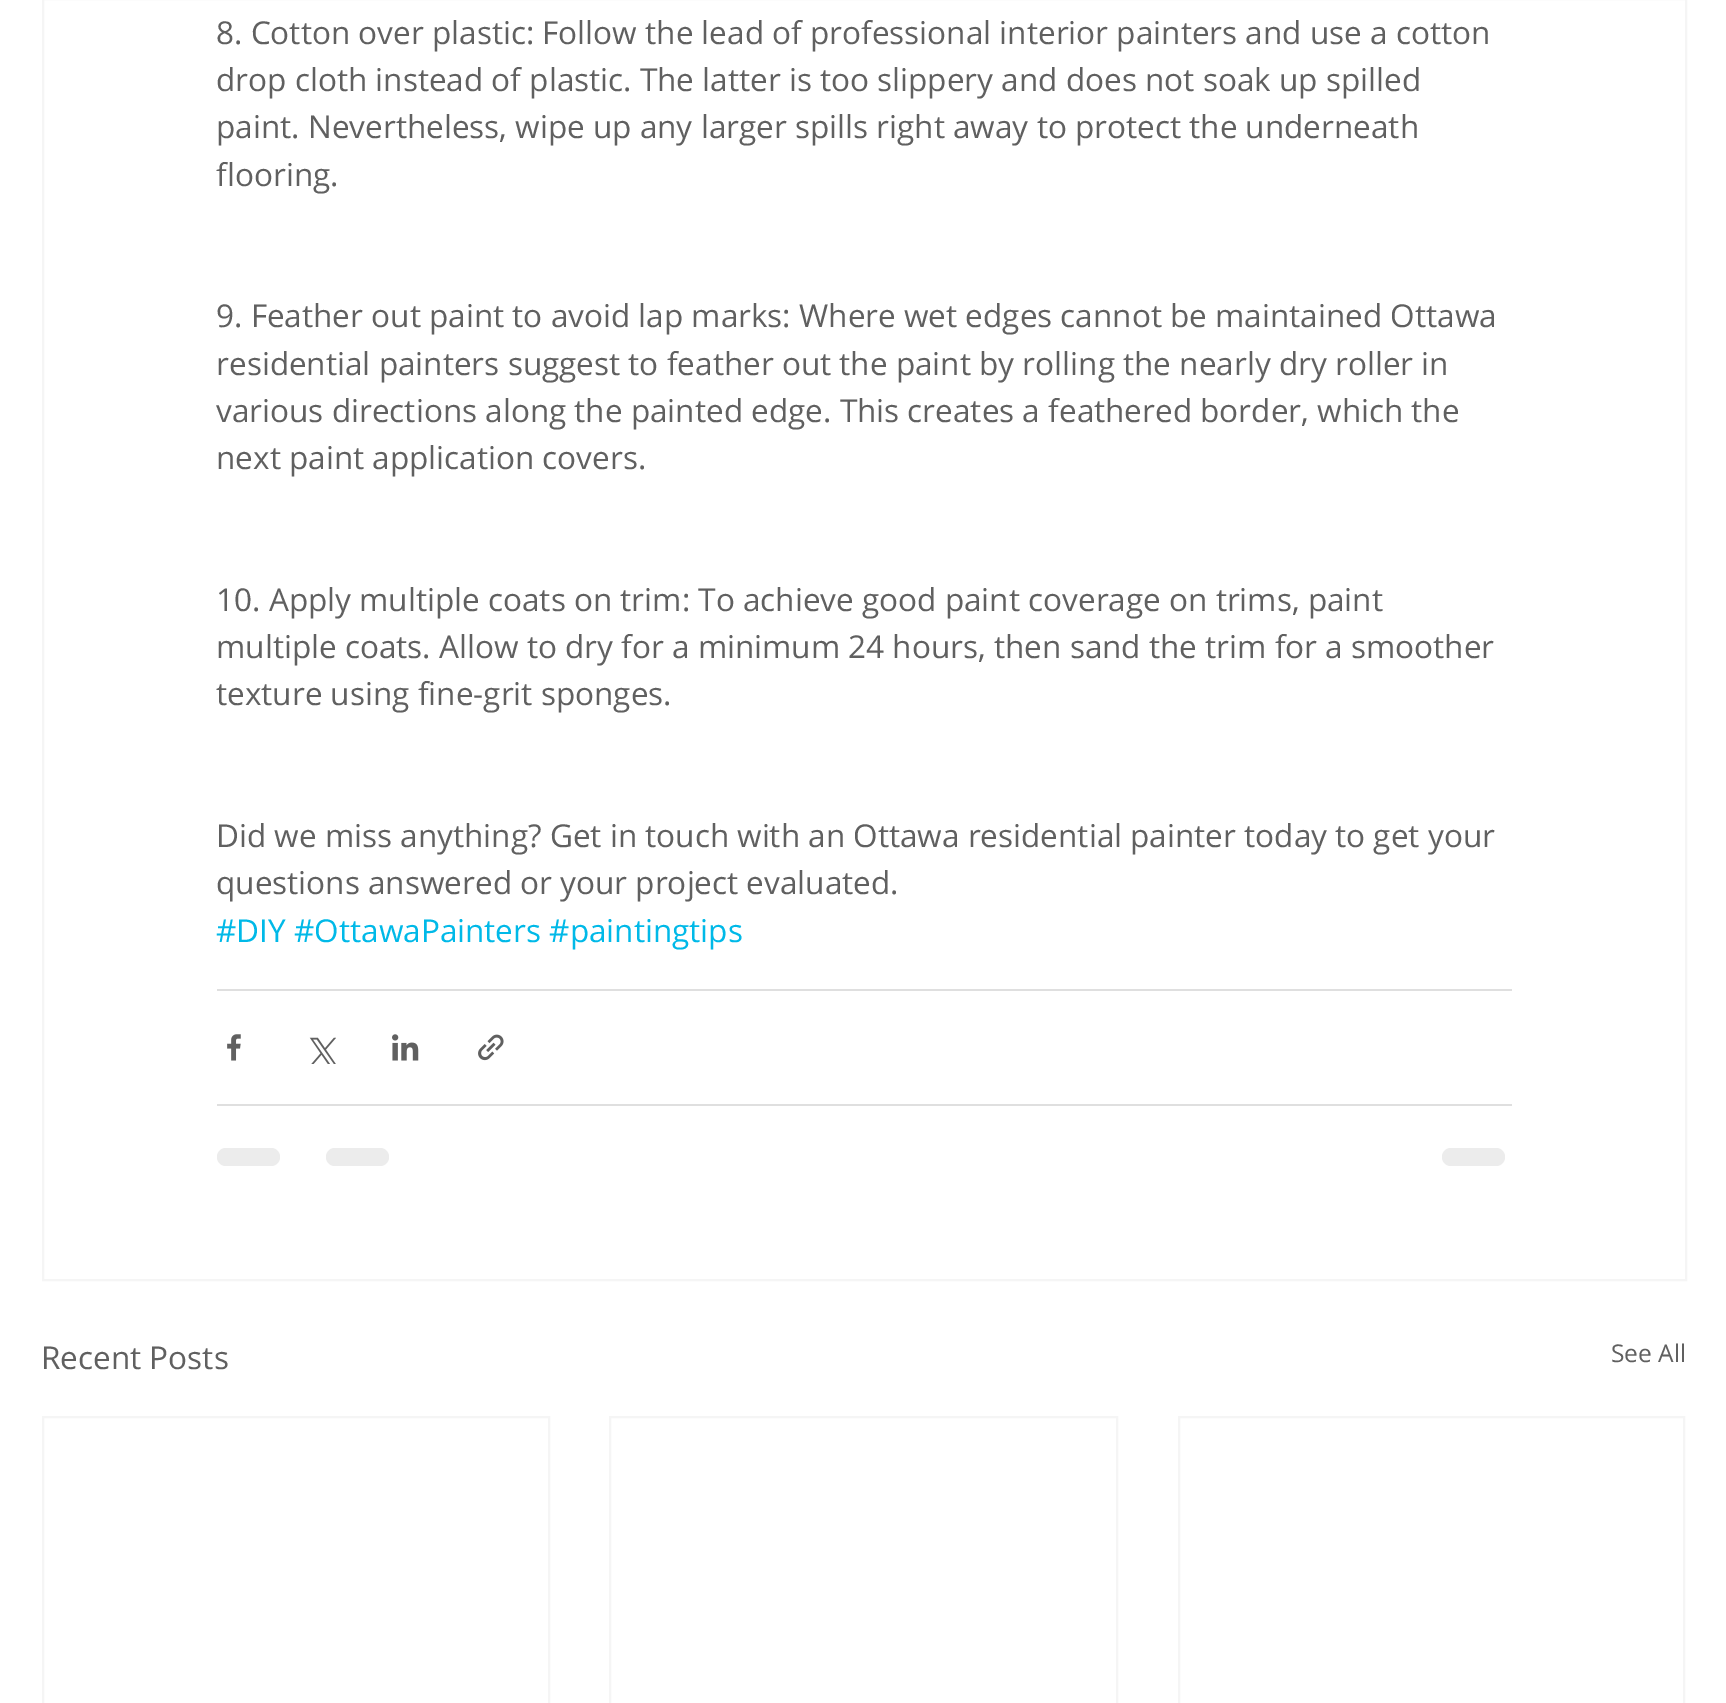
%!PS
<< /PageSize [1726 1703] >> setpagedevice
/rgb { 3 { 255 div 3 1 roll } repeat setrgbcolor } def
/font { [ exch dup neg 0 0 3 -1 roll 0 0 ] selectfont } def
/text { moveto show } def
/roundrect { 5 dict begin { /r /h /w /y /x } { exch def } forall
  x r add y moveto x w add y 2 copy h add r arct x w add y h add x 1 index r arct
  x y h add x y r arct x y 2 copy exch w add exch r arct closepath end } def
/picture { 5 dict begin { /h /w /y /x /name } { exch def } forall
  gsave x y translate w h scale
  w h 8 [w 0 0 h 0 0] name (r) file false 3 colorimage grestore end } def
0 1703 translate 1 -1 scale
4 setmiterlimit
255 255 255 rgb
0 0 1726 1703 rectfill
245 245 245 rgb
2 setlinewidth
43 -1 1643 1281 rectstroke
223 223 223 rgb
217 989 1295 2 rectfill
(img_01.rgb) 227 1034 14 27 picture
(img_02.rgb) 309 1037 27 27 picture
(img_03.rgb) 392 1034 27 27 picture
(img_04.rgb) 478 1034 26 27 picture
217 1104 1295 2 rectfill
236 236 236 rgb
217 1148 63 18 9 roundrect fill
326 1148 63 18 9 roundrect fill
1442 1148 63 18 9 roundrect fill
245 245 245 rgb
43 1417 506 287 rectstroke
610 1417 507 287 rectstroke
1179 1417 505 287 rectstroke
/OpenSans-Regular 31.5 font
96 96 96 rgb
(8. Cotton over plastic: Follow the lead of professional interior painters and use a cotton) 216 44 text
(drop cloth instead of plastic. The latter is too slippery and does not soak up spilled) 216 91 text
(paint. Nevertheless, wipe up any larger spills right away to protect the underneath) 216 138 text
(flooring.) 216 186 text
(9. Feather out paint to avoid lap marks: Where wet edges cannot be maintained Ottawa) 216 327 text
(residential painters suggest to feather out the paint by rolling the nearly dry roller in) 216 375 text
(various directions along the painted edge. This creates a feathered border, which the) 216 422 text
(next paint application covers.) 216 469 text
(10. Apply multiple coats on trim: To achieve good paint coverage on trims, paint) 216 611 text
(multiple coats. Allow to dry for a minimum 24 hours, then sand the trim for a smoother) 216 658 text
(texture using fine-grit sponges.) 216 705 text
(Did we miss anything? Get in touch with an Ottawa residential painter today to get your) 216 847 text
(questions answered or your project evaluated.) 216 894 text
0 185 232 rgb
(#DIY #OttawaPainters #paintingtips) 216 942 text
96 96 96 rgb
(Recent Posts) 41 1369 text
/OpenSans-Regular 24.5 font
(See All) 1611 1362 text
showpage
